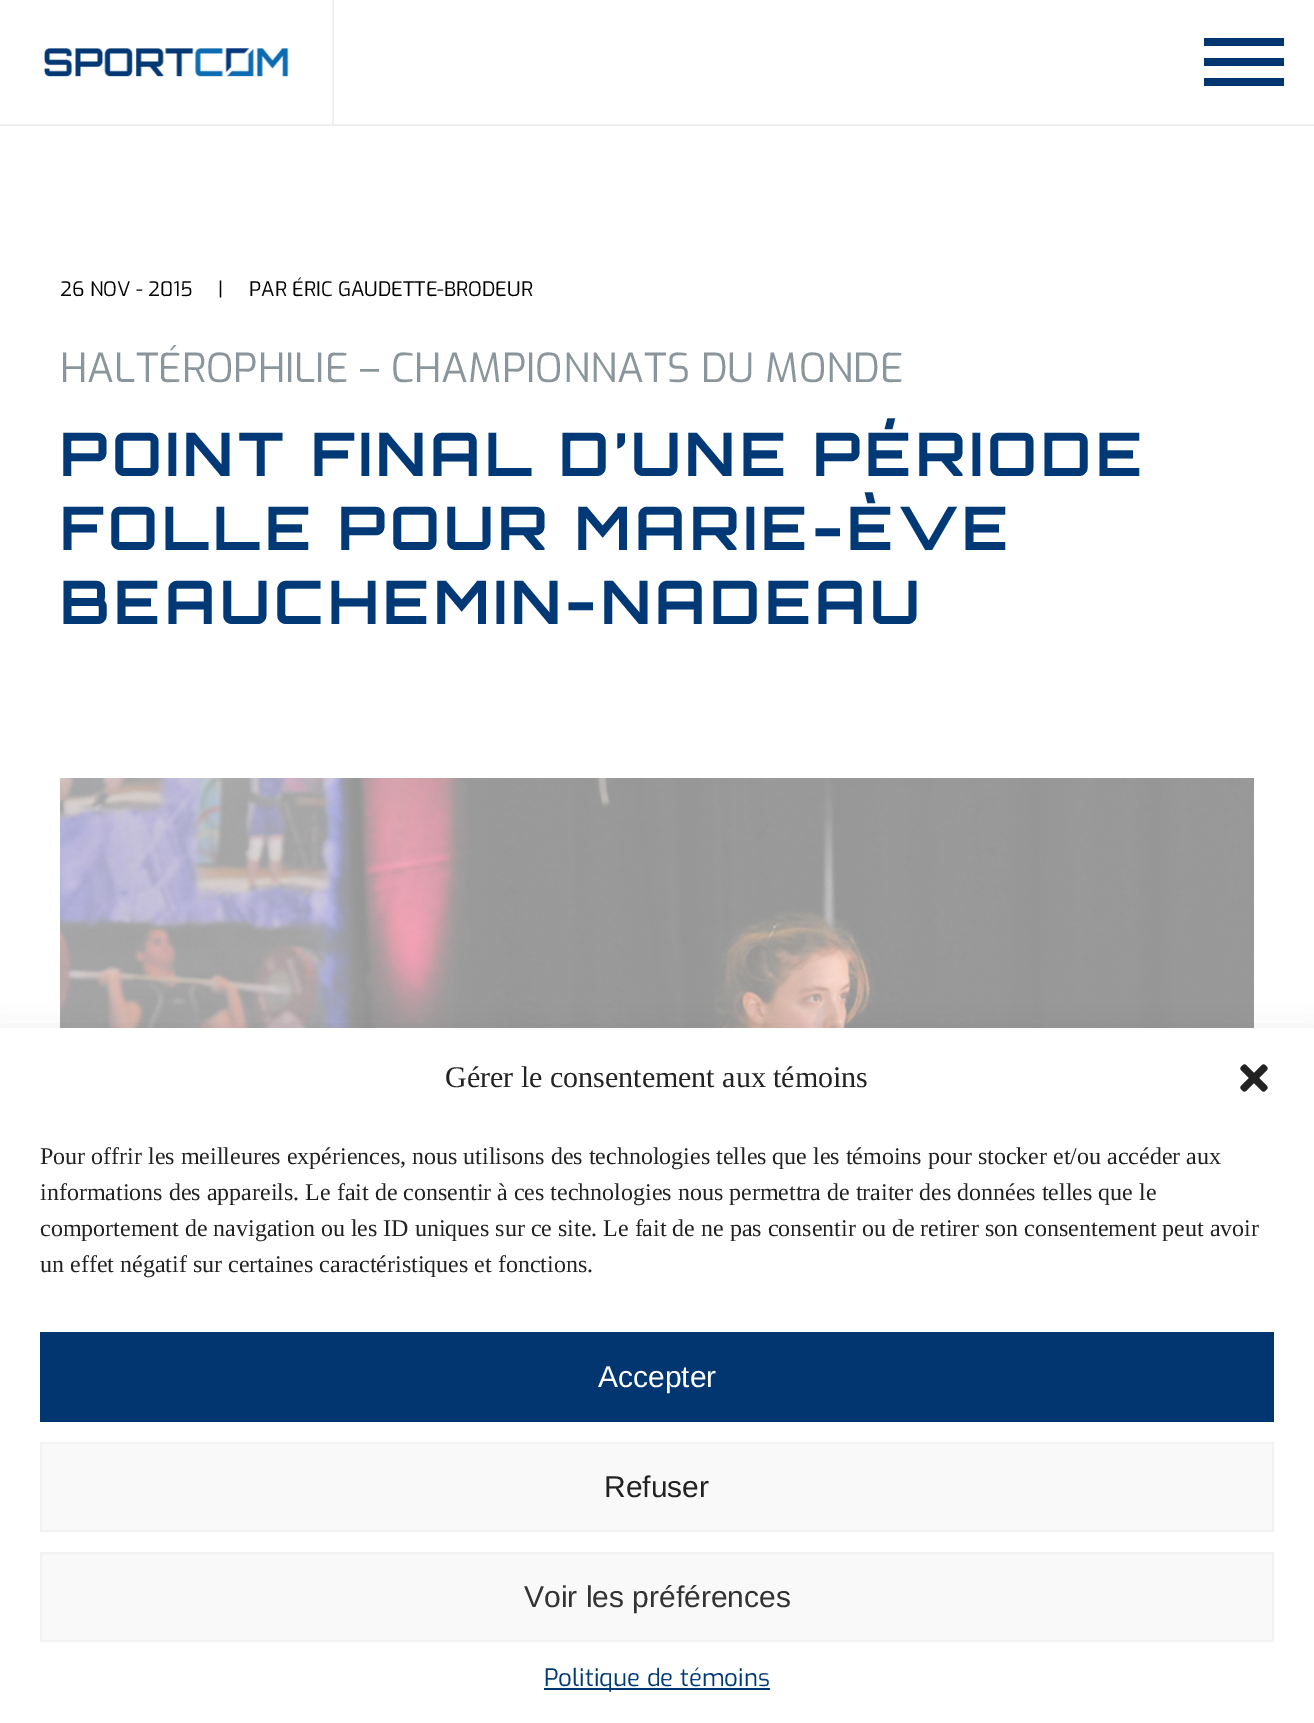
%!PS
<< /PageSize [1314 1723] /PageUsesTransparency true >> setpagedevice
/rgb { 3 { 255 div 3 1 roll } repeat setrgbcolor } def
/font { [ exch dup neg 0 0 3 -1 roll 0 0 ] selectfont } def
/text { moveto show } def
/alpha { dup .setfillconstantalpha .setstrokeconstantalpha } def
/roundrect { 5 dict begin { /r /h /w /y /x } { exch def } forall
  x r add y moveto x w add y 2 copy h add r arct x w add y h add x 1 index r arct
  x y h add x y r arct x y 2 copy exch w add exch r arct closepath end } def
/shadow { 12 dict begin { /a /b /q /h /w /y /x } { exch def } forall gsave /was 0 def
  9 -2 -9 { dup b mul 4 div /e exch def 1 sub .425 mul 2.718 exch exp 1 add a .99 .min exch div /now exch def
    1 1 now sub 1 was sub div sub alpha /was now def
    w h .min e 2 mul add 0 gt { x e sub y e sub w e 2 mul add h e 2 mul add
      q e add b .6 mul add w h .min 2 div e add .min 0 .max roundrect fill } if } for grestore end } def
/picture { 5 dict begin { /h /w /y /x /name } { exch def } forall
  gsave x y translate w h scale
  w h 8 [w 0 0 h 0 0] name (r) file false 3 colorimage grestore end } def
0 .pushpdf14devicefilter
0 1723 translate 1 -1 scale
4 setmiterlimit
255 255 255 rgb
0 0 1314 1723 rectfill
239 239 239 rgb
0 124 1314 2 rectfill
332 0 2 124 rectfill
(img_01.rgb) 44 48 245 29 picture
2 54 113 rgb
1204 38 80 8 rectfill
1204 58 80 8 rectfill
1204 78 80 8 rectfill
(img_02.rgb) 60 778 1194 250 picture
0 0 0 rgb
0 1048 1314 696 0 20 0.19 shadow
255 255 255 rgb
0 1028 1314 695 rectfill
(img_03.rgb) 1240 1064 28 28 picture
2 54 113 rgb
40 1332 1234 90 rectfill
249 249 249 rgb
41 1443 moveto 1232 0 rlineto 0 88 rlineto -1232 0 rlineto closepath gsave fill grestore
242 242 242 rgb
2 setlinewidth
stroke
249 249 249 rgb
41 1553 moveto 1232 0 rlineto 0 88 rlineto -1232 0 rlineto closepath gsave fill grestore
242 242 242 rgb
stroke
2 54 113 rgb
544 1688 226 2 rectfill
/Exo-Regular 20 font
0 0 0 rgb
(26 NOV - 2015) 60 296 text
(|) 218 296 text
(PAR ÉRIC GAUDETTE-BRODEUR) 249 296 text
/Exo-Regular 40 font
138 150 155 rgb
(HALTÉROPHILIE – CHAMPIONNATS DU MONDE) 60 382 text
/Orbitron-Bold 60 font
0 57 118 rgb
60 476 moveto 4.5 0 (POINT FINAL D’UNE PÉRIODE) ashow
60 550 moveto 4.5 0 (FOLLE POUR MARIE-ÈVE) ashow
60 624 moveto 4.5 0 (BEAUCHEMIN-NADEAU) ashow
/LiberationSerif-Regular 30 font
34 34 34 rgb
(Gérer le consentement aux témoins) 445 1087 text
/LiberationSerif-Regular 24 font
(Pour offrir les meilleures expériences, nous utilisons des technologies telles que les témoins pour stocker et/ou accéder aux) 40 1164 text
(informations des appareils. Le fait de consentir à ces technologies nous permettra de traiter des données telles que le) 40 1200 text
(comportement de navigation ou les ID uniques sur ce site. Le fait de ne pas consentir ou de retirer son consentement peut avoir) 40 1236 text
(un effet négatif sur certaines caractéristiques et fonctions.) 40 1272 text
/LiberationSans-Regular 30 font
255 255 255 rgb
(Accepter) 598 1387 text
34 34 34 rgb
(Refuser) 604 1497 text
51 51 51 rgb
(Voir les préférences) 524 1607 text
/Exo-Regular 24 font
0 57 118 rgb
(Politique de témoins) 544 1686 text
.poppdf14devicefilter showpage
